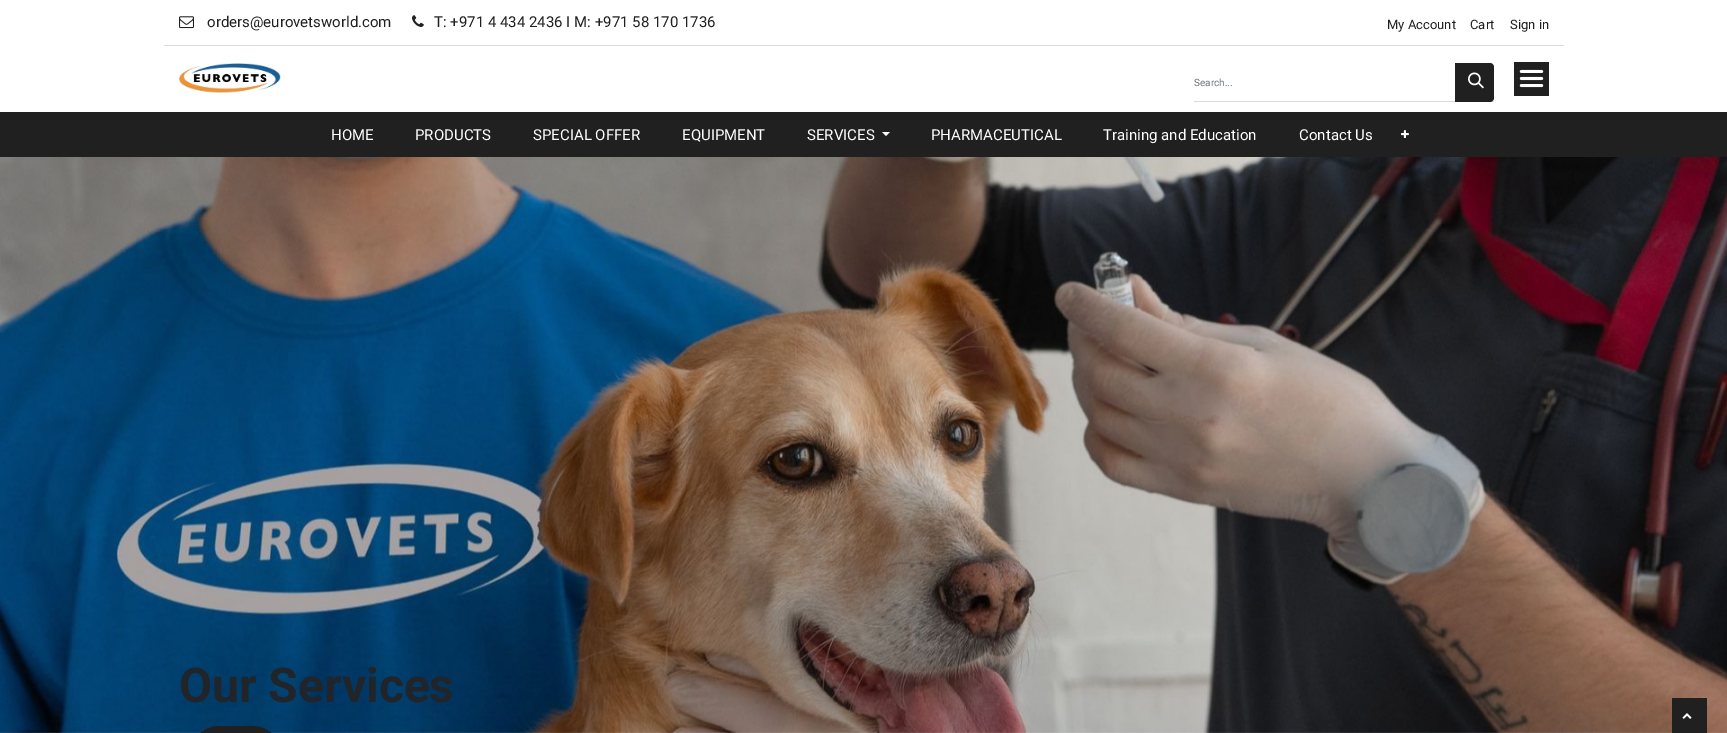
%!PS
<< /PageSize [1727 733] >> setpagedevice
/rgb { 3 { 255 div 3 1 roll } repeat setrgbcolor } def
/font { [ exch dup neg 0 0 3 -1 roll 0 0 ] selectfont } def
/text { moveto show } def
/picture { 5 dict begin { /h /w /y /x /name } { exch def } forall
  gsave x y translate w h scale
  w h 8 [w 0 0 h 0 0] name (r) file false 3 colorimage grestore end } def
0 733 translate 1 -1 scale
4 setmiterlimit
255 255 255 rgb
0 0 1727 733 rectfill
(img_01.rgb) 179 16 15 13 picture
(img_02.rgb) 412 15 12 12 picture
218 218 218 rgb
164 45 1400 1 rectfill
(img_03.rgb) 179 63 102 30 picture
1194 101 300 1 rectfill
32 32 32 rgb
1455 63 moveto 35 0 rlineto 2 0 4 2 4 4 rcurveto 0 31 rlineto 0 2 -2 4 -4 4 rcurveto -35 0 rlineto closepath fill
(img_04.rgb) 1468 72 16 17 picture
1514 62 35 34 rectfill
(img_05.rgb) 1519 69 25 19 picture
0 112 1727 45 rectfill
255 255 255 rgb
882 132 moveto 8 0 rlineto -4 4 rlineto closepath fill
(img_06.rgb) 1401 130 8 8 picture
(img_07.rgb) 0 157 1727 576 picture
32 32 32 rgb
220 726 moveto 32 0 rlineto 17 0 31 14 31 31 rcurveto 0 -24 rlineto -94 0 rlineto 0 24 rlineto 0 -17 14 -31 31 -31 rcurveto closepath fill
1672 698 35 35 rectfill
(img_08.rgb) 1682 713 10 6 picture
/Roboto-Regular 15 font
(orders@eurovetsworld.com) 207 27 text
(T: +971 4 434 2436 I M: +971 58 170 1736) 434 27 text
/Roboto-Regular 13 font
(My Account) 1387 29 text
(Cart) 1470 29 text
(Sign in) 1510 29 text
/Roboto-Regular 10 font
108 117 125 rgb
(Search...) 1194 86 text
/Roboto-Regular 15 font
255 255 255 rgb
(HOME) 331 140 text
(PRODUCTS) 415 140 text
(SPECIAL OFFER) 533 140 text
(EQUIPMENT) 682 140 text
(SERVICES) 807 140 text
(PHARMACEUTICAL) 931 140 text
(Training and Education) 1103 140 text
(Contact Us) 1299 140 text
/Roboto-Bold 48 font
33 37 41 rgb
(Our Services) 179 702 text
showpage
